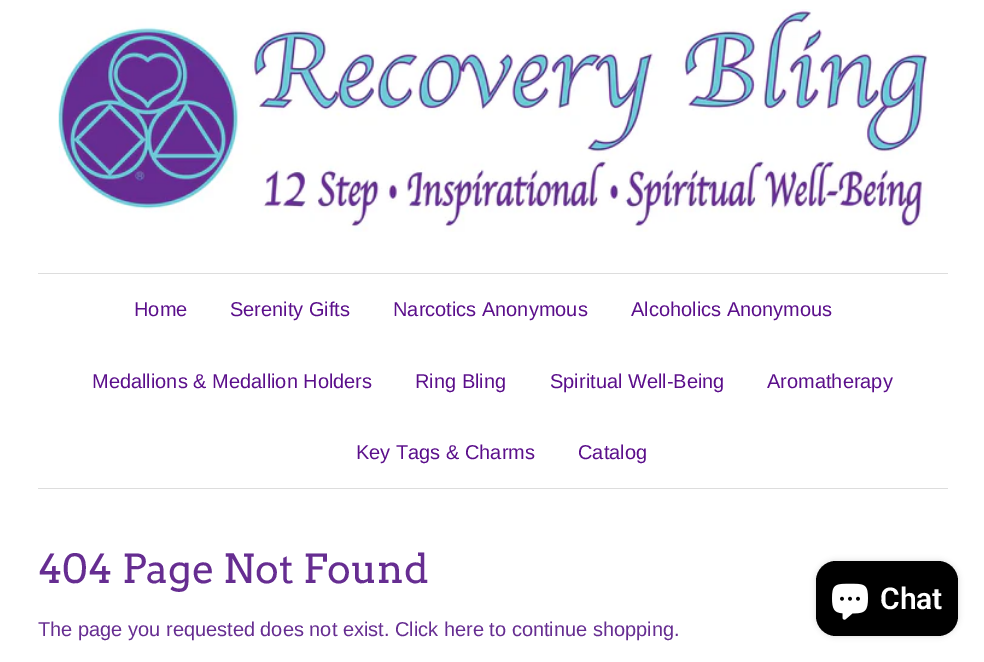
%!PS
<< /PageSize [984 662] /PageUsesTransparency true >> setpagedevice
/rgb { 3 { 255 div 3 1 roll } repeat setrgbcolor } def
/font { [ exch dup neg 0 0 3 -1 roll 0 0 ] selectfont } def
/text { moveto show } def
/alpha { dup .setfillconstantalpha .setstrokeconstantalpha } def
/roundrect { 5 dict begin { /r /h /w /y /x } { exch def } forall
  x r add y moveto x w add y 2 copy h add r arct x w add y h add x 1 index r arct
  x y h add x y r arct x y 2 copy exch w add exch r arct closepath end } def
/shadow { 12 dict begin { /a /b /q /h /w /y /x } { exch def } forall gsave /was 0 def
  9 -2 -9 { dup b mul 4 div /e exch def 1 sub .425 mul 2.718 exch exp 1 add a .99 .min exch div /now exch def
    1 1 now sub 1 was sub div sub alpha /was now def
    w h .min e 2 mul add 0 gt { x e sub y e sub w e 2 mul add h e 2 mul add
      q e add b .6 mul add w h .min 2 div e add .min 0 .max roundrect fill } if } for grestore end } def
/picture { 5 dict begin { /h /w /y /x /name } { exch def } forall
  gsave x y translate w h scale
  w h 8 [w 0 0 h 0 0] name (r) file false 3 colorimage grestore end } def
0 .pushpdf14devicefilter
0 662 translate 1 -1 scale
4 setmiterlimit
255 255 255 rgb
0 0 984 662 rectfill
(img_01.rgb) 58 9 870 223 picture
221 221 221 rgb
38 273 910 1 rectfill
38 488 910 1 rectfill
0 0 0 rgb
816 561 142 75 20 3 0.15 shadow
816 561 142 75 20 roundrect fill
(img_02.rgb) 832 583 36 37 picture
/LiberationSans-Regular 20 font
91 15 139 rgb
(Home) 134 316 text
(Serenity Gifts) 230 316 text
(Narcotics Anonymous) 393 316 text
(Alcoholics Anonymous) 631 316 text
(Medallions & Medallion Holders) 92 388 text
(Ring Bling) 415 388 text
(Spiritual Well-Being) 550 388 text
(Aromatherapy) 767 388 text
(Key Tags & Charms) 356 459 text
(Catalog) 578 459 text
/Arvo-Regular 40 font
102 45 145 rgb
(404 Page Not Found) 38 583 text
/LiberationSans-Regular 20 font
(The page you requested does not exist. Click here to continue shopping.) 38 636 text
/Roboto-SemiBold 30 font
255 255 255 rgb
(Chat) 880 609 text
.poppdf14devicefilter showpage
